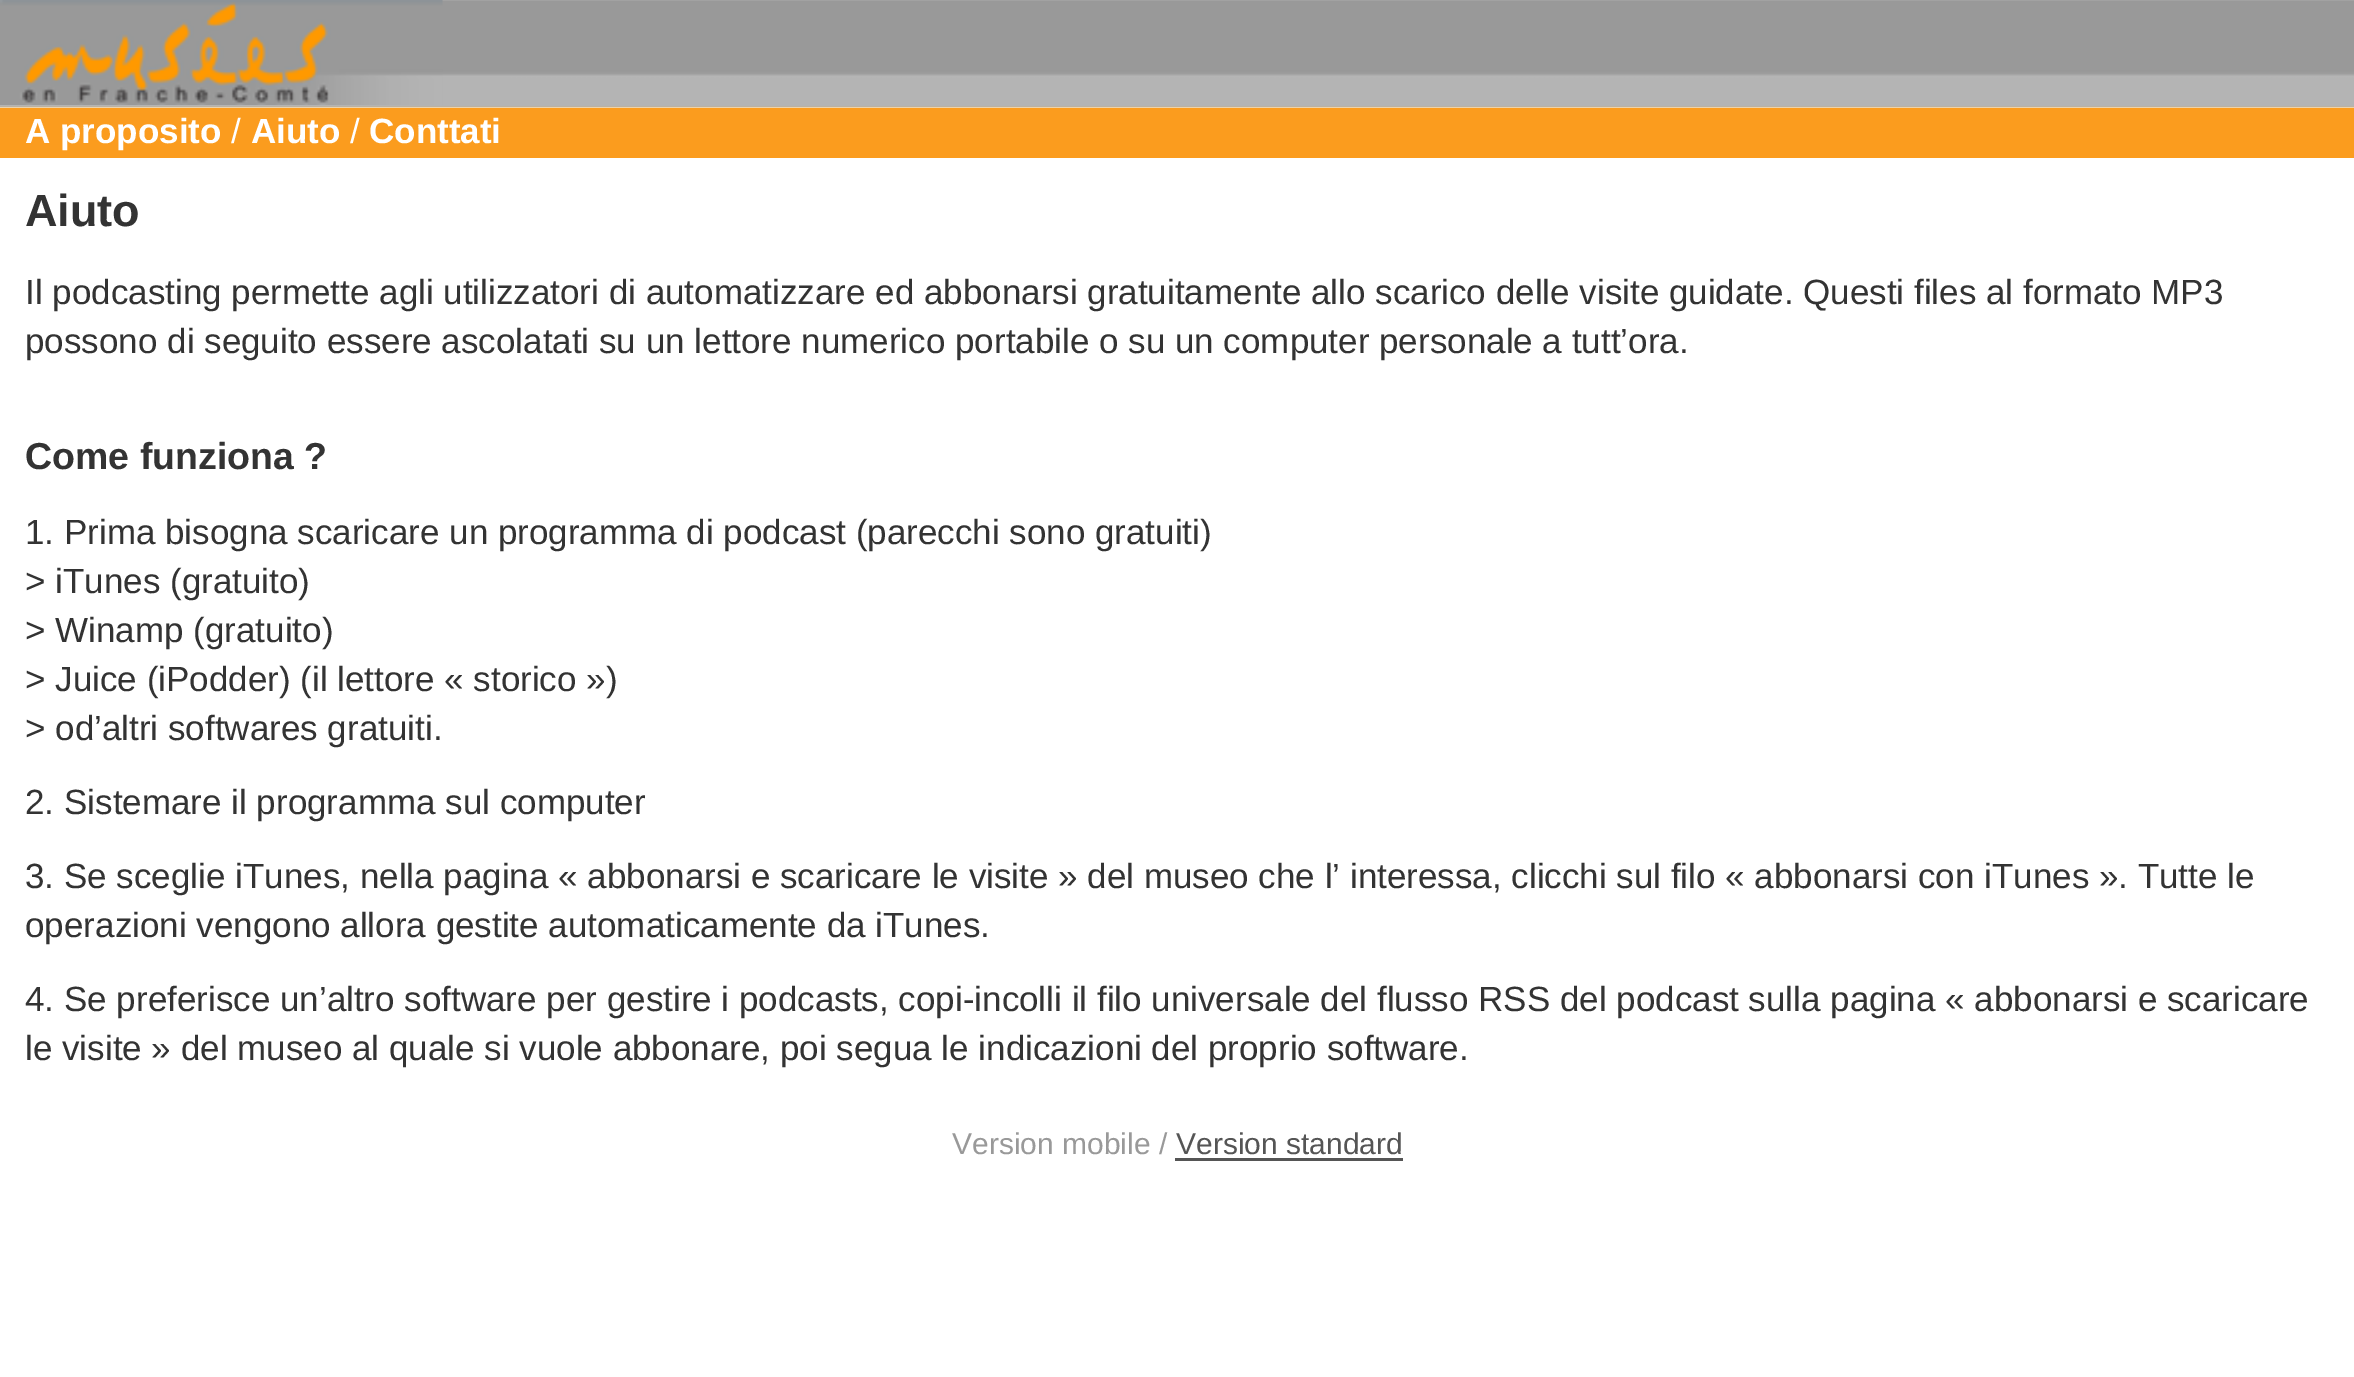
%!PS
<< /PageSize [2354 1377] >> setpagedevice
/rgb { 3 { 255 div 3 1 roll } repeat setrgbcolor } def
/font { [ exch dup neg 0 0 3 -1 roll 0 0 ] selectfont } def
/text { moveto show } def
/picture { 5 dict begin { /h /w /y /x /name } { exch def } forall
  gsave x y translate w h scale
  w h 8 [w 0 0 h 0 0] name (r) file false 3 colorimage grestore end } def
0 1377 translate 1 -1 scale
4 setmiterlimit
255 255 255 rgb
0 0 2354 1377 rectfill
(img_01.rgb) 0 0 2354 108 picture
(img_02.rgb) 0 0 443 105 picture
251 156 30 rgb
0 108 2354 50 rectfill
85 85 85 rgb
1175 1158 228 3 rectfill
/LiberationSans-Bold 35 font
255 255 255 rgb
(A proposito) 25 143 text
/LiberationSans-Regular 35 font
(/) 231 143 text
/LiberationSans-Bold 35 font
(Aiuto) 251 143 text
/LiberationSans-Regular 35 font
(/) 350 143 text
/LiberationSans-Bold 35 font
(Conttati) 369 143 text
/LiberationSans-Bold 45 font
51 51 51 rgb
(Aiuto) 25 226 text
/LiberationSans-Regular 35 font
(Il podcasting permette agli utilizzatori di automatizzare ed abbonarsi gratuitamente allo scarico delle visite guidate. Questi files al formato MP3) 25 304 text
(possono di seguito essere ascolatati su un lettore numerico portabile o su un computer personale a tutt’ora.) 25 353 text
/LiberationSans-Bold 37.5 font
(Come funziona ?) 25 469 text
/LiberationSans-Regular 35 font
(1. Prima bisogna scaricare un programma di podcast \(parecchi sono gratuiti\)) 25 544 text
(> iTunes \(gratuito\)) 25 593 text
(> Winamp \(gratuito\)) 25 642 text
(> Juice \(iPodder\) \(il lettore « storico »\)) 25 691 text
(> od’altri softwares gratuiti.) 25 740 text
(2. Sistemare il programma sul computer) 25 814 text
(3. Se sceglie iTunes, nella pagina « abbonarsi e scaricare le visite » del museo che l’ interessa, clicchi sul filo « abbonarsi con iTunes ». Tutte le) 25 888 text
(operazioni vengono allora gestite automaticamente da iTunes.) 25 937 text
(4. Se preferisce un’altro software per gestire i podcasts, copi-incolli il filo universale del flusso RSS del podcast sulla pagina « abbonarsi e scaricare) 25 1011 text
(le visite » del museo al quale si vuole abbonare, poi segua le indicazioni del proprio software.) 25 1060 text
/LiberationSans-Regular 30 font
153 153 153 rgb
(Version mobile /) 952 1154 text
85 85 85 rgb
(Version standard) 1176 1154 text
showpage
